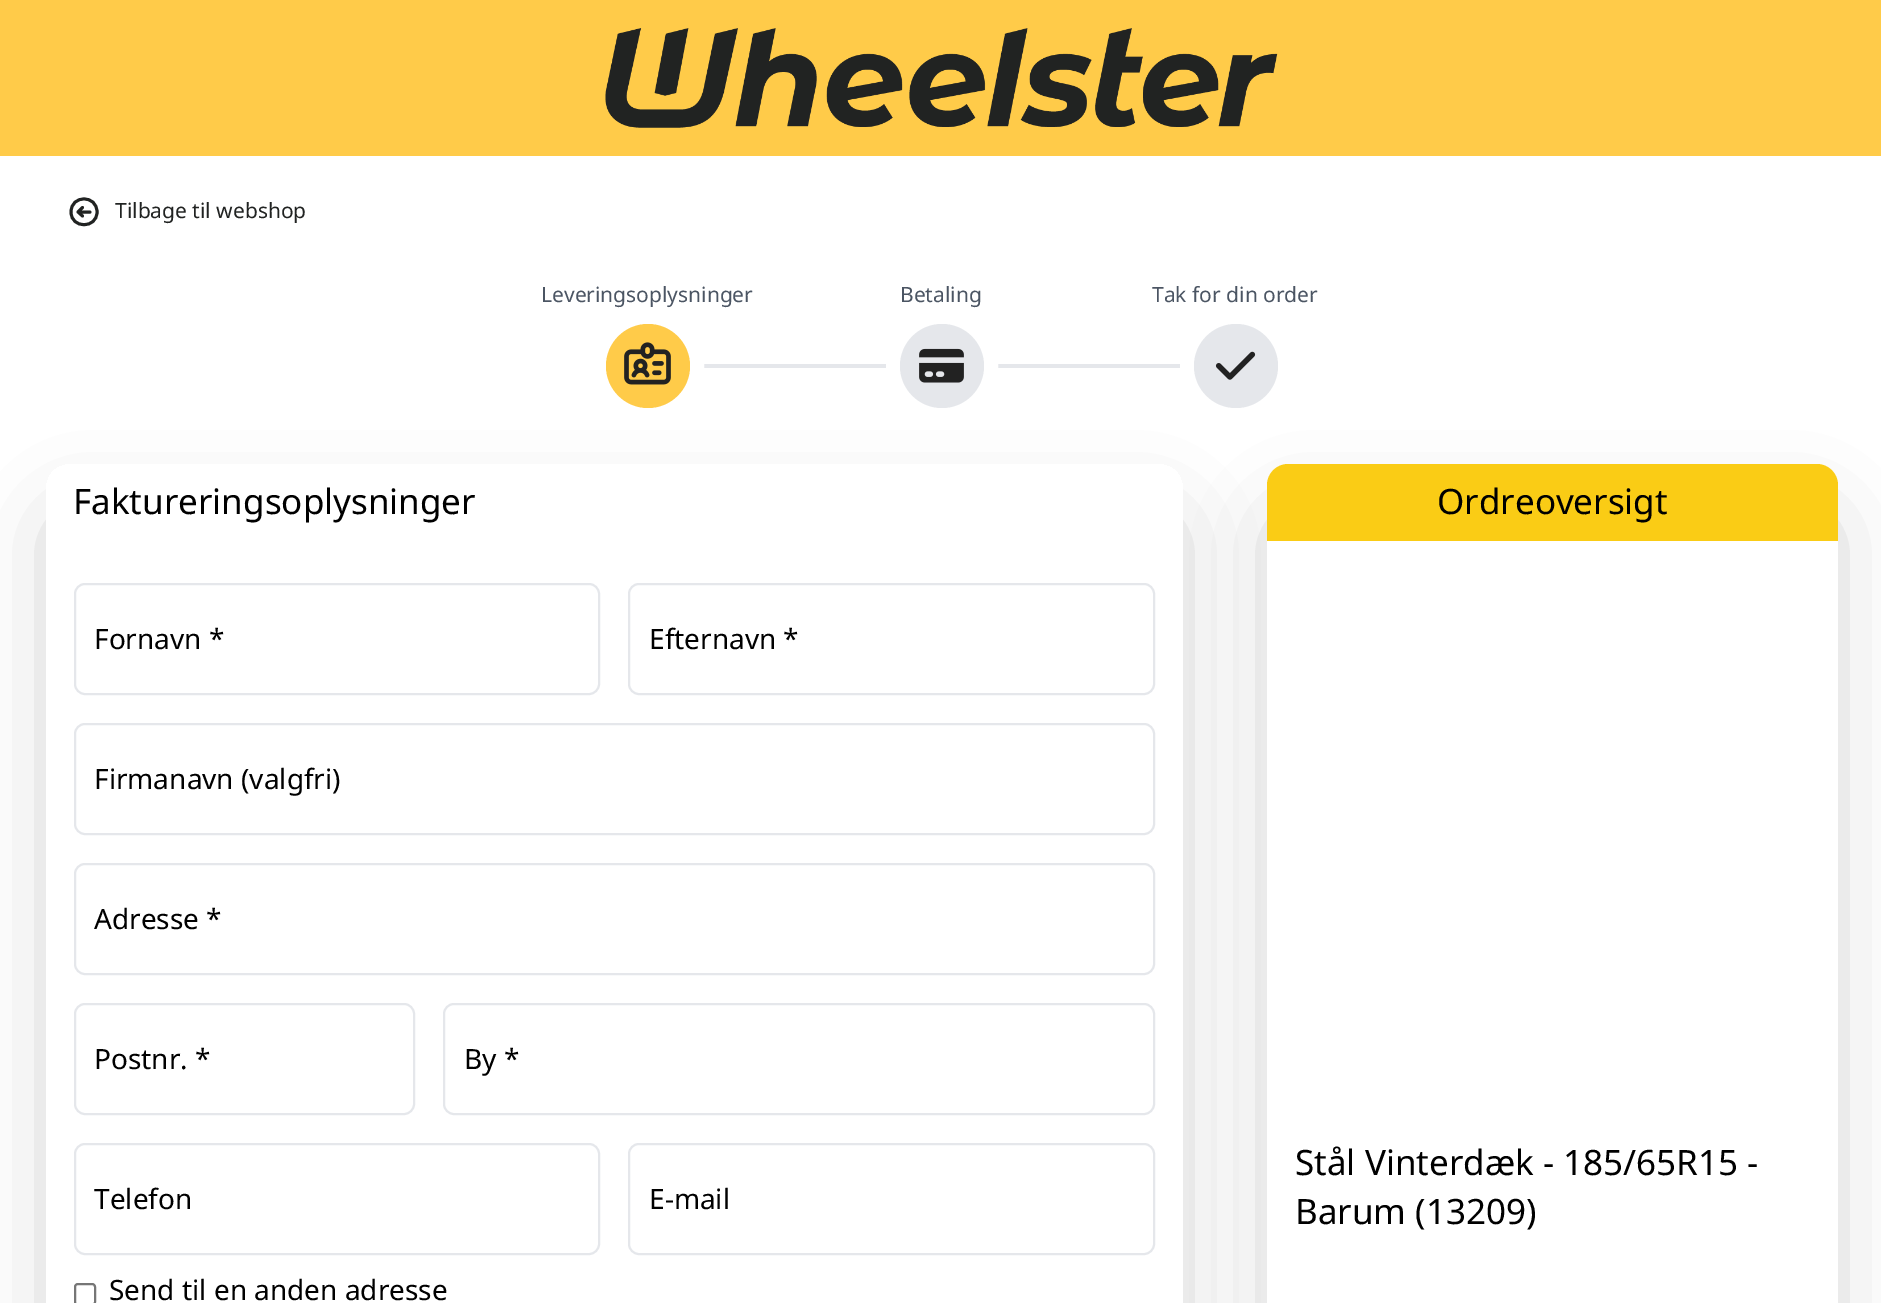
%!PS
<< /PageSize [1881 1303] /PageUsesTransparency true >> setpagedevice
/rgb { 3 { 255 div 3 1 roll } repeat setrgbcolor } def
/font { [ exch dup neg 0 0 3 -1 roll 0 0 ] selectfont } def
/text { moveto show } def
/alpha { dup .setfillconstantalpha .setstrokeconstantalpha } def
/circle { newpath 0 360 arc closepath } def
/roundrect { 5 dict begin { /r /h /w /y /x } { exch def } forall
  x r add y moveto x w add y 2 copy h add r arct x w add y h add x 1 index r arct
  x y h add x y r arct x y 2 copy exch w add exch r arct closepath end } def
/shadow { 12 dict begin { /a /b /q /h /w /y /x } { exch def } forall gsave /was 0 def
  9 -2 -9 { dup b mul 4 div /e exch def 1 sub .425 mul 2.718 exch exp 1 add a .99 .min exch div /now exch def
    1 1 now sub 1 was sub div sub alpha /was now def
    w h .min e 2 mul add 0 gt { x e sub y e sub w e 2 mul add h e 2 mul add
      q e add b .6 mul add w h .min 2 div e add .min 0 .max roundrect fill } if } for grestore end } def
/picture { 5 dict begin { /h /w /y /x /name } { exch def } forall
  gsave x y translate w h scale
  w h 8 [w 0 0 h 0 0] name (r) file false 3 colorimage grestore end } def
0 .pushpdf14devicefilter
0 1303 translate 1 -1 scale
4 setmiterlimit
255 255 255 rgb
0 0 1881 1303 rectfill
255 203 73 rgb
0 0 1881 156 rectfill
(img_01.rgb) 605 28 673 100 picture
33 35 34 rgb
2.9 setlinewidth
1 setlinecap
1 setlinejoin
82.5 216 moveto -4.5 -4 rlineto 78 212 moveto 4.5 -4.5 rlineto 78 212 moveto 12 0 rlineto 71 212 moveto 0 -17.5 26 -17.5 26 0 rcurveto 0 17 -26 17 -26 0 rcurveto closepath stroke
229 231 235 rgb
703 364 184 4 rectfill
gsave
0 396 moveto 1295 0 rlineto 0 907 rlineto -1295 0 rlineto closepath 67 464 moveto 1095 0 rlineto 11.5 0 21 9.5 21 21 rcurveto 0 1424 rlineto -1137 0 rlineto 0 -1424 rlineto 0 -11.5 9.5 -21 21 -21 rcurveto closepath eoclip newpath
0 0 0 rgb
67 529 1095 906 0 44 0.25 shadow
grestore
255 255 255 rgb
14 setlinewidth
0 setlinecap
0 setlinejoin
648 366 49 circle stroke
255 203 73 rgb
648 366 42 circle fill
(img_02.rgb) 624 342 47 43 picture
229 231 235 rgb
997 364 184 4 rectfill
255 255 255 rgb
942 366 49 circle stroke
229 231 235 rgb
942 366 42 circle fill
(img_03.rgb) 919 348 45 35 picture
gsave
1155 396 moveto 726 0 rlineto 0 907 rlineto -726 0 rlineto closepath 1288 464 moveto 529 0 rlineto 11.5 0 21 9.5 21 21 rcurveto 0 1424 rlineto -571 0 rlineto 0 -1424 rlineto 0 -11.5 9.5 -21 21 -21 rcurveto closepath eoclip newpath
0 0 0 rgb
1288 529 529 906 0 44 0.25 shadow
grestore
255 255 255 rgb
1236 366 49 circle stroke
229 231 235 rgb
1236 366 42 circle fill
(img_04.rgb) 1215 351 41 29 picture
2 setlinewidth
75 584 524 110 10 roundrect stroke
629 584 525 110 10 roundrect stroke
75 724 1079 110 10 roundrect stroke
75 864 1079 110 10 roundrect stroke
75 1004 339 110 10 roundrect stroke
444 1004 710 110 10 roundrect stroke
75 1144 524 110 10 roundrect stroke
629 1144 525 110 10 roundrect stroke
118 118 118 rgb
75 1284 20 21 3 roundrect stroke
250 204 21 rgb
1288 464 moveto 529 0 rlineto 11.5 0 21 9.5 21 21 rcurveto 0 56 rlineto -571 0 rlineto 0 -56 rlineto 0 -11.5 9.5 -21 21 -21 rcurveto closepath fill
/NotoSans-Regular 21 font
33 35 34 rgb
(Tilbage til webshop) 115 218 text
75 85 99 rgb
(Leveringsoplysninger) 541 302 text
(Betaling) 900 302 text
(Tak for din order) 1152 302 text
/NotoSans-Regular 35 font
0 0 0 rgb
(Faktureringsoplysninger) 73 514 text
/NotoSans-Regular 28 font
(Fornavn *) 94 649 text
(Efternavn *) 649 649 text
(Firmanavn \(valgfri\)) 94 789 text
(Adresse *) 94 929 text
(Postnr. *) 94 1069 text
(By *) 464 1069 text
(Telefon) 94 1209 text
(E-mail) 649 1209 text
(Send til en anden adresse) 109 1300 text
/NotoSans-Regular 35 font
(Ordreoversigt) 1437 514 text
(Stål Vinterdæk - 185/65R15 -) 1295 1175 text
(Barum \(13209\)) 1295 1224 text
.poppdf14devicefilter showpage
